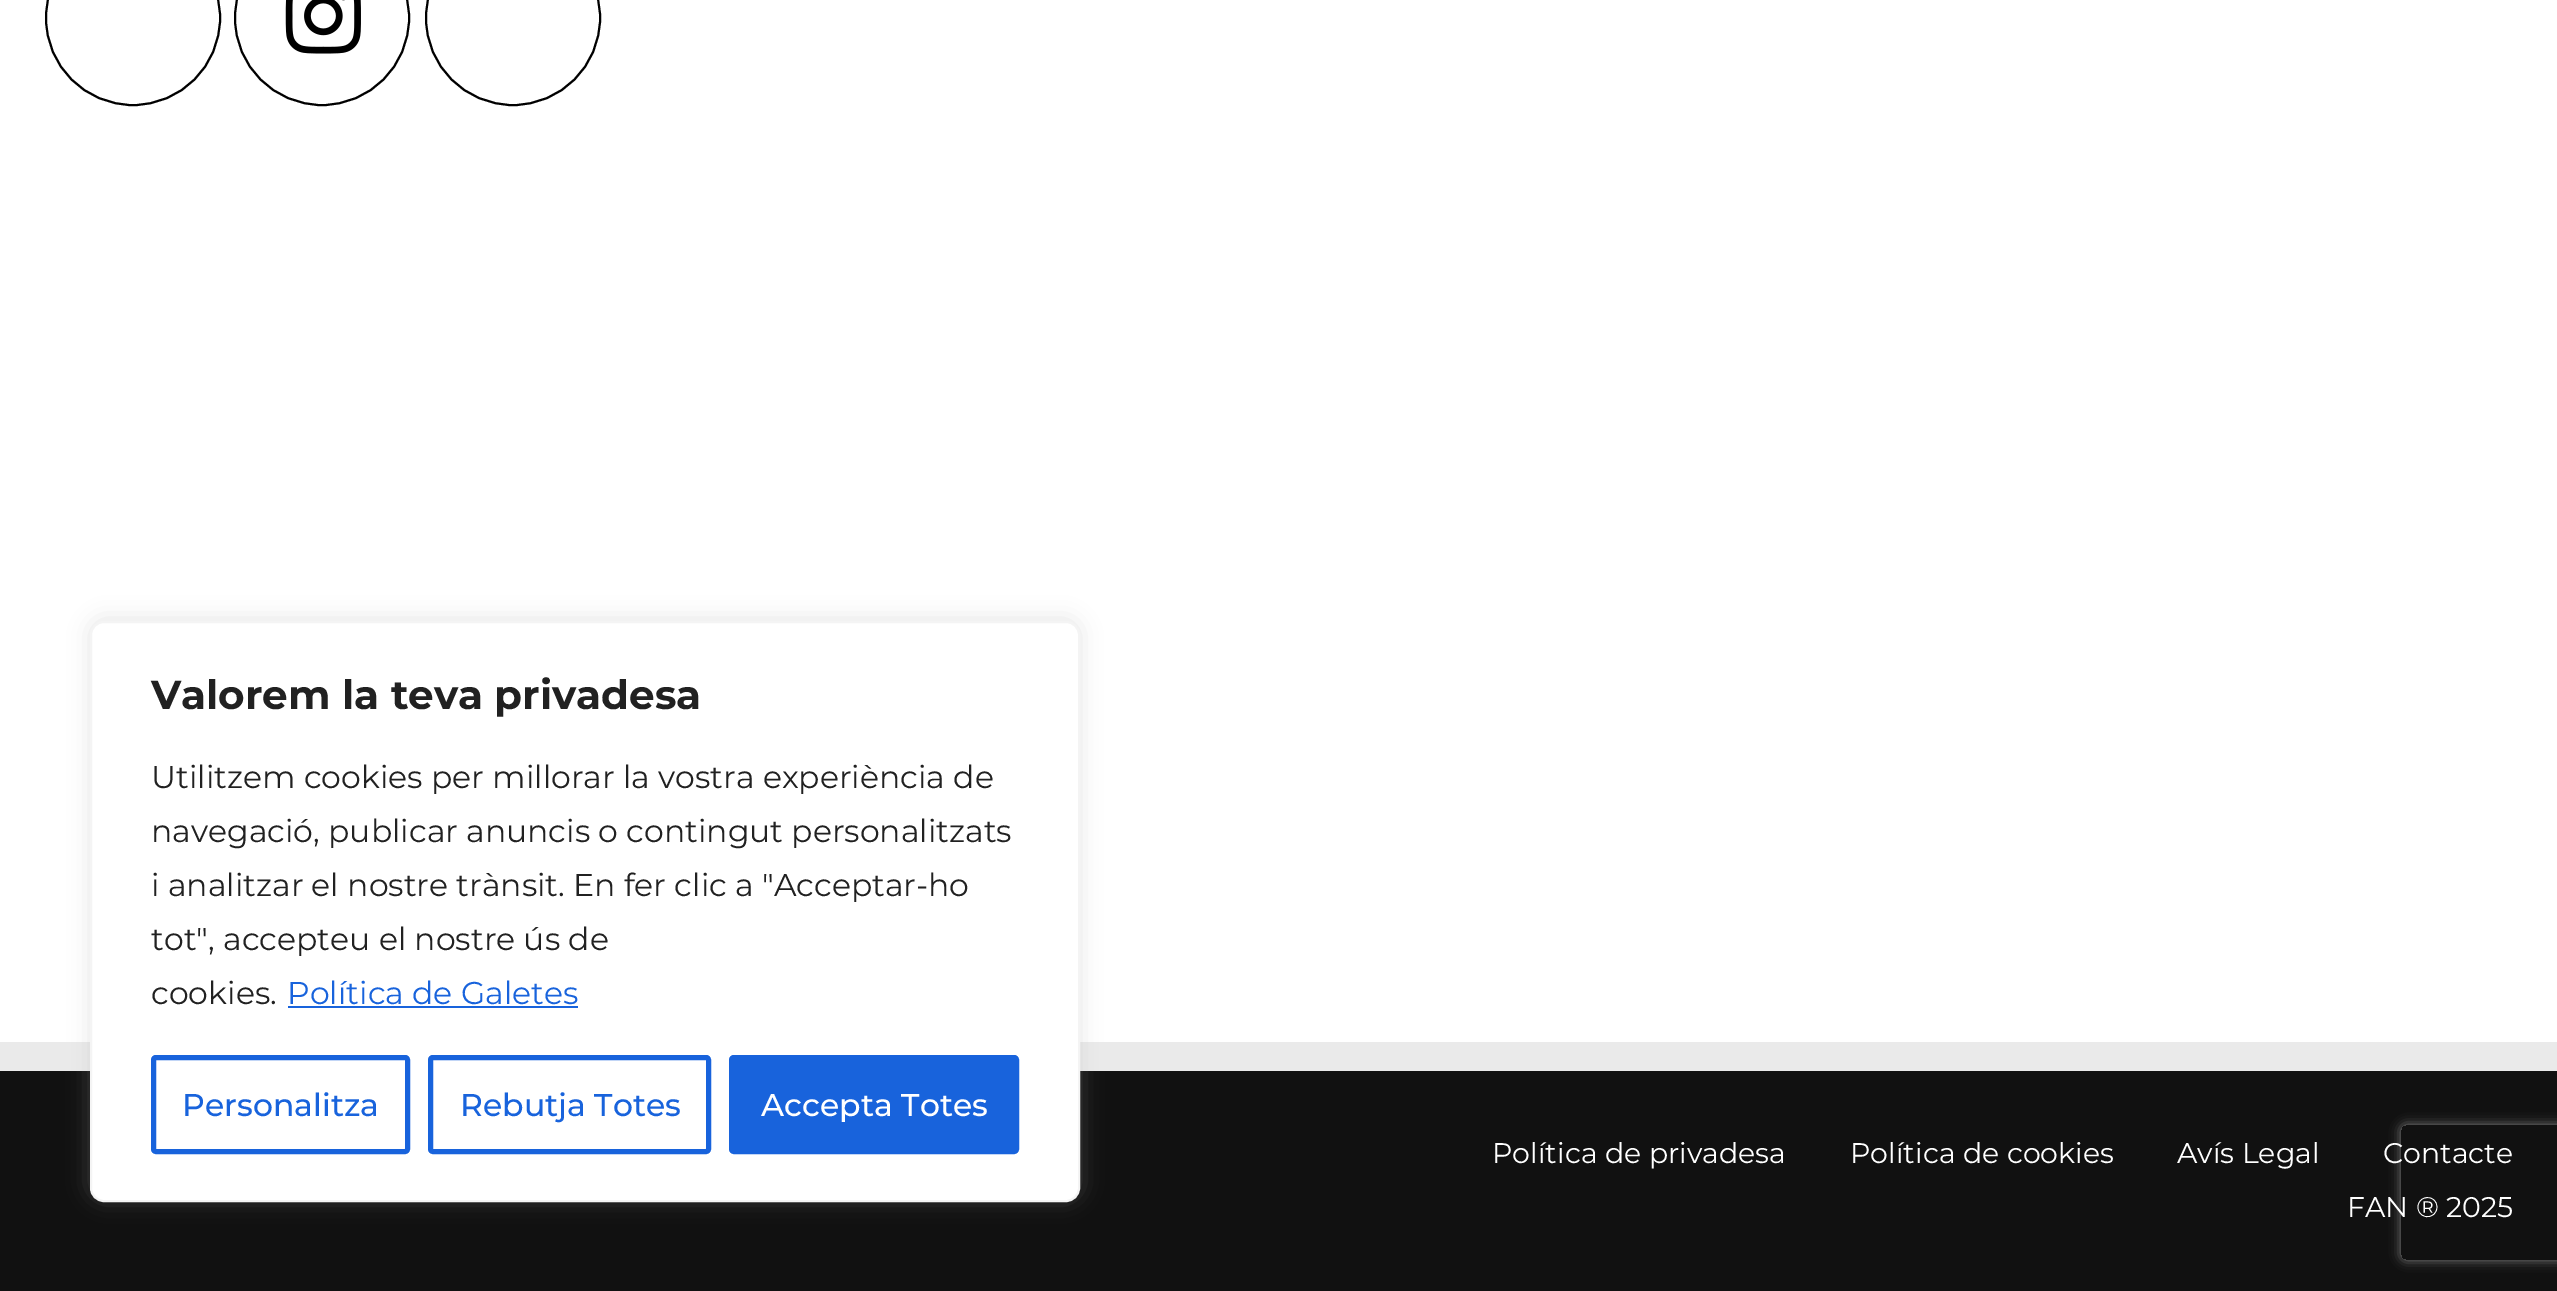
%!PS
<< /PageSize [2557 1291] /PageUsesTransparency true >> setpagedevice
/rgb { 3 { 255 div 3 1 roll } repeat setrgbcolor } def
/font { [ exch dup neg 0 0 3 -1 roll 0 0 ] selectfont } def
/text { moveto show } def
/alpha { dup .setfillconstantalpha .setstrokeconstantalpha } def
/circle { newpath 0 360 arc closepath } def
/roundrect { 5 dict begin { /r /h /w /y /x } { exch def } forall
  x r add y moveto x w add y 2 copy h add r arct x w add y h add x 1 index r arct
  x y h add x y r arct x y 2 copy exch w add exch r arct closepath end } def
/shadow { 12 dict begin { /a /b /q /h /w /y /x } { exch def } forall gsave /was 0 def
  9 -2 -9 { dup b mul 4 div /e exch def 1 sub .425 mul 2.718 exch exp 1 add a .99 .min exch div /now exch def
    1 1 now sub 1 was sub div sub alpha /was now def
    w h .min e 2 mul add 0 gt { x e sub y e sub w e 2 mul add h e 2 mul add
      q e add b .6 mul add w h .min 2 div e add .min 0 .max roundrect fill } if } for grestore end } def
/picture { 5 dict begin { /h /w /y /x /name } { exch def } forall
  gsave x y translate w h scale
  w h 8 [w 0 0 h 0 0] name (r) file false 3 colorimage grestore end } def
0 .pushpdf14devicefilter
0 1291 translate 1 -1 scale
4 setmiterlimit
234 234 234 rgb
0 0 2557 1291 rectfill
255 255 255 rgb
0 0 2557 1042 rectfill
17 17 17 rgb
0 1071 2557 220 rectfill
172 171 171 rgb
90 619 990 580 14 11 0.3 shadow
255 255 255 rgb
91 622 988 579 13 roundrect gsave fill grestore
244 244 244 rgb
2 setlinewidth
stroke
24 99 220 rgb
288 1006 290 2 rectfill
5 setlinewidth
153.5 1057.5 254 94 2.5 roundrect stroke
430.5 1057.5 278 94 2.5 roundrect stroke
731.5 1057.5 285 94 2.5 roundrect gsave fill grestore
stroke
gsave
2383 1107 moveto 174 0 rlineto 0 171 rlineto -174 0 rlineto closepath 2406 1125 moveto 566 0 rlineto 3 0 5 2 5 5 rcurveto 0 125 rlineto 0 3 -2 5 -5 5 rcurveto -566 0 rlineto -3 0 -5 -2 -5 -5 rcurveto 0 -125 rlineto 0 -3 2 -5 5 -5 rcurveto closepath eoclip newpath
128 128 128 rgb
2401 1125 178 135 5 5.5 1 shadow
grestore
0 0 0 rgb
2 setlinewidth
133 18 87 circle stroke
322 18 87 circle stroke
(img_01.rgb) 285 0 76 54 picture
513 18 87 circle stroke
/Montserrat-Bold 40.5 font
33 33 33 rgb
(Valorem la teva privadesa) 151 709 text
/Montserrat-Regular 31.5 font
(Utilitzem cookies per millorar la vostra experiència de) 151 788 text
(navegació, publicar anuncis o contingut personalitzats) 151 842 text
(i analitzar el nostre trànsit. En fer clic a "Acceptar-ho) 151 896 text
(tot", accepteu el nostre ús de) 151 950 text
(cookies.) 151 1004 text
24 99 220 rgb
(Política de Galetes) 287 1004 text
/Montserrat-Medium 31.5 font
(Personalitza) 182 1116 text
(Rebutja Totes) 460 1116 text
255 255 255 rgb
(Accepta Totes) 761 1116 text
/Montserrat-Regular 28.4 font
(Política de privadesa) 1492 1163 text
(Política de cookies) 1850 1163 text
(Avís Legal) 2177 1163 text
(Contacte) 2383 1163 text
(FAN ® 2025) 2347 1217 text
.poppdf14devicefilter showpage
